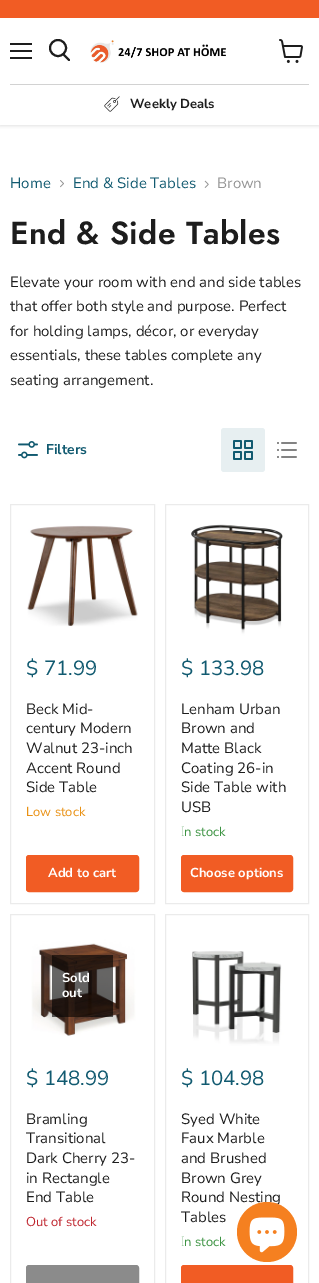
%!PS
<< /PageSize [319 1283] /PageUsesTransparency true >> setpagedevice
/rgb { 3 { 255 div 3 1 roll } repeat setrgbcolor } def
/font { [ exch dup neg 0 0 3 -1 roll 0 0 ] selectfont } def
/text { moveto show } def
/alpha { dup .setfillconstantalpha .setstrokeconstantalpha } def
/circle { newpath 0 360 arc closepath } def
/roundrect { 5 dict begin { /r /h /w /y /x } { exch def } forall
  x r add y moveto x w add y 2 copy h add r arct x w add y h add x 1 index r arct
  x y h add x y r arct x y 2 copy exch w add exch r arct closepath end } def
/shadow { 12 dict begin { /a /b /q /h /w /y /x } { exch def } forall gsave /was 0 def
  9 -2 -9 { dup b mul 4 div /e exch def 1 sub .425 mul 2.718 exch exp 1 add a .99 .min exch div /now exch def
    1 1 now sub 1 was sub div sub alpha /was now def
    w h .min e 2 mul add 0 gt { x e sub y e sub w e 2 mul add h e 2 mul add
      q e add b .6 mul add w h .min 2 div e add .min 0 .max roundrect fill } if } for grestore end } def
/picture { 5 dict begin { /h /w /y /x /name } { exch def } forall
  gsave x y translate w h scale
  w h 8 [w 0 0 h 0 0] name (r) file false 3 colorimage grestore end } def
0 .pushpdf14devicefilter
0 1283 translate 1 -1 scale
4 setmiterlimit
255 255 255 rgb
0 0 319 1283 rectfill
gsave
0 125 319 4 rectclip
128 128 128 rgb
0 19 319 107 0 2 0.25 shadow
grestore
241 92 36 rgb
0 0 319 18 rectfill
29 29 29 rgb
10 43 22 2 rectfill
10 50 22 2 rectfill
10 57 22 2 rectfill
2 setlinewidth
1 setlinecap
69 60 moveto -5.5 -5.5 rlineto stroke
0 setlinecap
58 48 8 circle stroke
(img_01.rgb) 279 39 24 24 picture
(img_02.rgb) 90 40 136 23 picture
210 210 210 rgb
10 84 299 1 rectfill
(img_03.rgb) 104 96 16 16 picture
(img_04.rgb) 60 180 4 8 picture
(img_05.rgb) 204 180 5 8 picture
(img_06.rgb) 18 441 20 18 picture
231 239 241 rgb
221 428 44 44 3 roundrect fill
(img_07.rgb) 233 440 20 20 picture
(img_08.rgb) 277 442 20 16 picture
235 235 235 rgb
1 setlinewidth
10.5 504.5 144 399 rectstroke
(img_09.rgb) 22 516 121 120 picture
241 92 36 rgb
26.5 855.5 112 36 2.5 roundrect gsave fill grestore
stroke
235 235 235 rgb
165.5 504.5 143 399 rectstroke
(img_10.rgb) 177 516 120 120 picture
241 92 36 rgb
181.5 855.5 111 36 2.5 roundrect gsave fill grestore
stroke
235 235 235 rgb
10.5 914.5 144 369 rectstroke
(img_11.rgb) 22 926 121 120 picture
0.6 alpha
0 0 0 rgb
52 955 61 62 rectfill
1 alpha
139 139 139 rgb
26.5 1265.5 112 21 2.5 roundrect gsave fill grestore
stroke
235 235 235 rgb
165.5 914.5 143 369 rectstroke
(img_12.rgb) 177 926 120 120 picture
241 92 36 rgb
181.5 1265.5 111 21 2.5 roundrect gsave fill grestore
stroke
/NunitoSans-Bold 13 font
29 29 29 rgb
(Weekly Deals) 130 108 text
/NunitoSans-Regular 15 font
17 90 112 rgb
(Home) 10 188 text
(End & Side Tables) 73 188 text
148 148 148 rgb
(Brown) 217 188 text
/Jost-SemiBold 31.9 font
29 29 29 rgb
10 244 moveto 0.3 0 (End & Side Tables) ashow
/NunitoSans-Regular 15 font
(Elevate your room with end and side tables) 10 287 text
(that offer both style and purpose. Perfect) 10 311 text
(for holding lamps, décor, or everyday) 10 336 text
(essentials, these tables complete any) 10 360 text
(seating arrangement.) 10 385 text
/NunitoSans-Bold 14 font
17 90 112 rgb
(Filters) 46 454 text
/NunitoSans-Regular 20.5 font
($ 71.99) 26 675 text
/NunitoSans-Regular 15 font
29 29 29 rgb
(Beck Mid-) 26 714 text
(century Modern) 26 733 text
(Walnut 23-inch) 26 753 text
(Accent Round) 26 773 text
(Side Table) 26 792 text
/NunitoSans-Regular 13 font
233 145 20 rgb
(Low stock) 26 816 text
/NunitoSans-Bold 13 font
255 255 255 rgb
(Add to cart) 48 877 text
/NunitoSans-Regular 20.5 font
17 90 112 rgb
($ 133.98) 181 675 text
/NunitoSans-Regular 15 font
29 29 29 rgb
(Lenham Urban) 181 714 text
(Brown and) 181 733 text
(Matte Black) 181 753 text
(Coating 26-in) 181 773 text
(Side Table with) 181 792 text
(USB) 181 812 text
/NotoSans-Thin 13 font
60 147 66 rgb
(I) 181 836 text
/NunitoSans-Regular 13 font
(n stock) 184 836 text
/NunitoSans-Bold 13 font
255 255 255 rgb
(Choose options) 190 877 text
(Sold) 62 982 text
(out) 62 997 text
/NunitoSans-Regular 20.5 font
17 90 112 rgb
($ 148.99) 26 1085 text
/NunitoSans-Regular 15 font
29 29 29 rgb
(Bramling) 26 1124 text
(Transitional) 26 1143 text
(Dark Cherry 23-) 26 1163 text
(in Rectangle) 26 1183 text
(End Table) 26 1202 text
/NunitoSans-Regular 13 font
191 38 47 rgb
(Out of stock) 26 1226 text
/NunitoSans-Regular 20.5 font
17 90 112 rgb
($ 104.98) 181 1085 text
/NunitoSans-Regular 15 font
29 29 29 rgb
(Syed White) 181 1124 text
(Faux Marble) 181 1143 text
(and Brushed) 181 1163 text
(Brown Grey) 181 1183 text
(Round Nesting) 181 1202 text
(Tables) 181 1222 text
/NotoSans-Thin 13 font
60 147 66 rgb
(I) 181 1246 text
/NunitoSans-Regular 13 font
(n stock) 184 1246 text
245 128 32 rgb
267 1232 30 circle fill
(img_13.rgb) 249 1217 36 36 picture
.poppdf14devicefilter showpage
